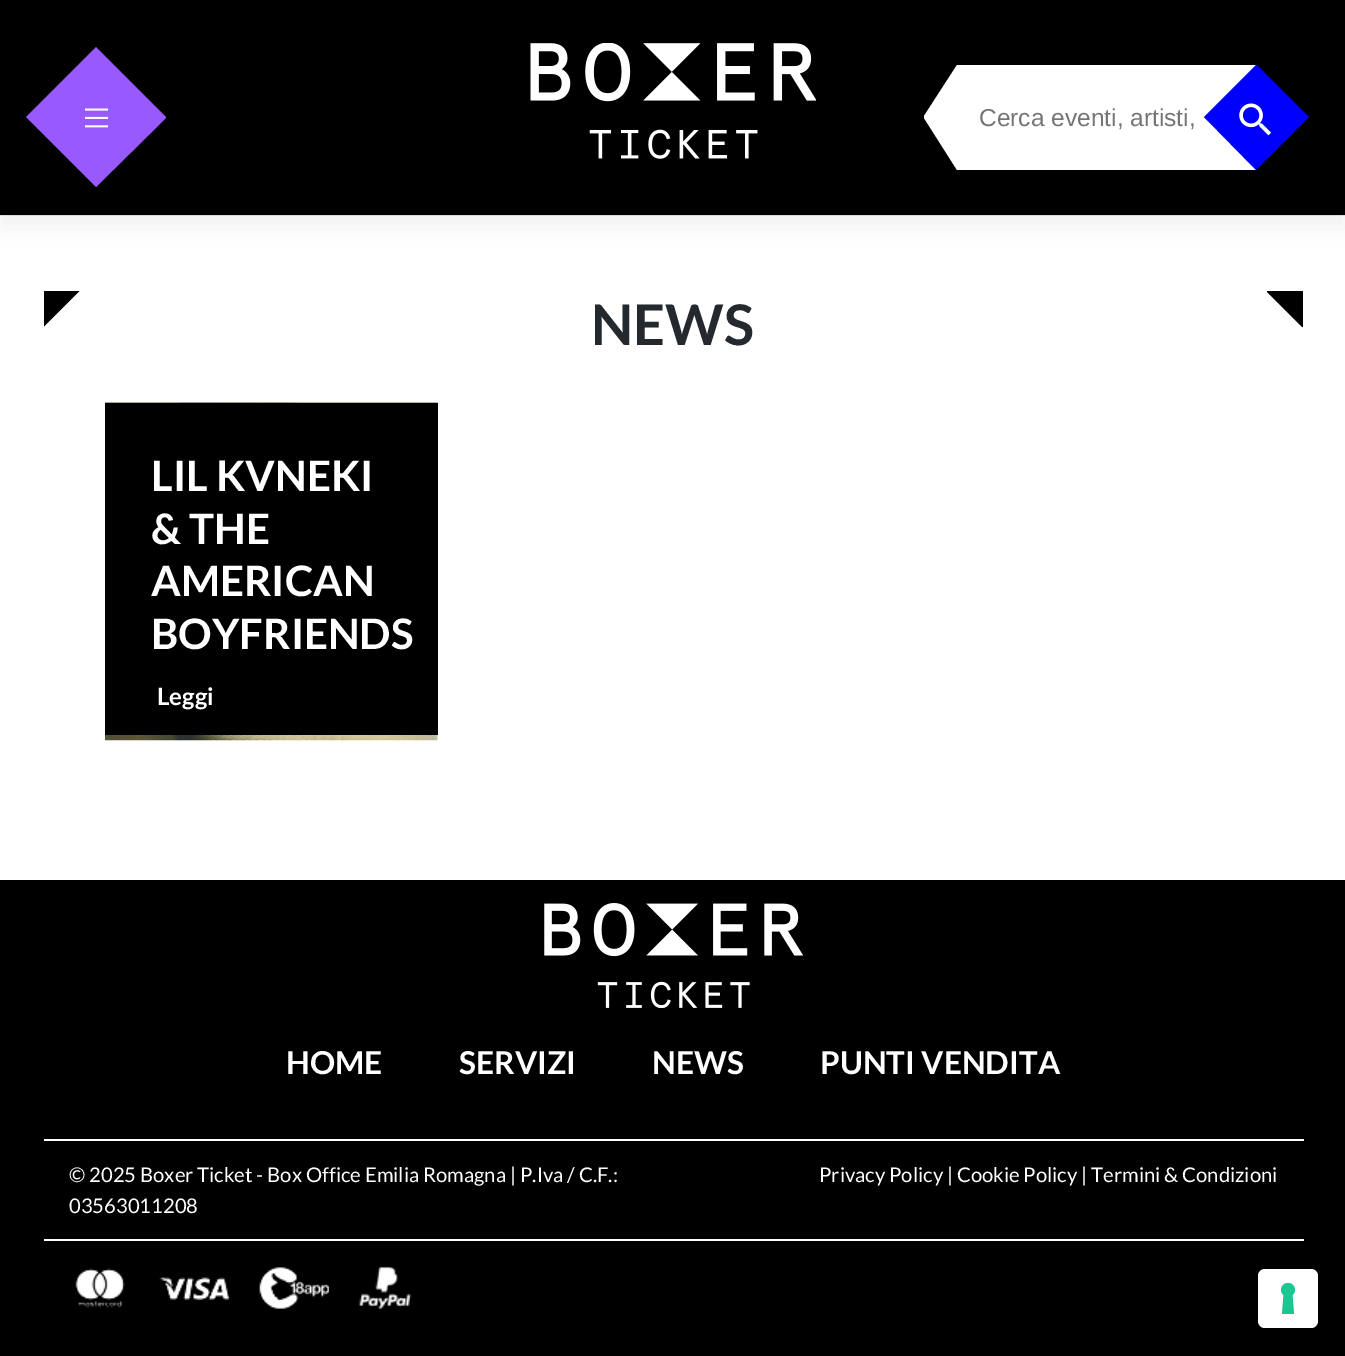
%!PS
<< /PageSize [1345 1356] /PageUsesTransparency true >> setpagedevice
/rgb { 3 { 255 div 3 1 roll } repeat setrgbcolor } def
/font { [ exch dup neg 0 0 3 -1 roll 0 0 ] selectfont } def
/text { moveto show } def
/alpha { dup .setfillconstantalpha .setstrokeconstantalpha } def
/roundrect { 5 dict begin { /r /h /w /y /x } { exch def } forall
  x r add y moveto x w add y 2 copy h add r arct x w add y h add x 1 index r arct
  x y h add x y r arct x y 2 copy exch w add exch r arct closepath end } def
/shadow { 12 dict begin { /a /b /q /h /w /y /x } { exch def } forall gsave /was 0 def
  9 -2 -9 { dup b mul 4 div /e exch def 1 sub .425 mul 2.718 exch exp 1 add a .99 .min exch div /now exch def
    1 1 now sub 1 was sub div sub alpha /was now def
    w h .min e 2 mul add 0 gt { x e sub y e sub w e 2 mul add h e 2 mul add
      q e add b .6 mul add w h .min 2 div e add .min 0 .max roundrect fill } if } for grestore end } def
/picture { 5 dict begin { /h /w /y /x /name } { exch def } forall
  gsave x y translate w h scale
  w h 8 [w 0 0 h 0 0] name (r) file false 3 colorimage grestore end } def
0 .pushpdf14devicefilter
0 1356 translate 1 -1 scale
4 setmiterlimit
255 255 255 rgb
0 0 1345 1356 rectfill
0 0 0 rgb
0 -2 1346 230 0 12 0.05 shadow
0 0 1345 215 rectfill
0.1 alpha
0 215 1345 1 rectfill
1 alpha
152 89 255 rgb
96 47 moveto 70 70 rlineto 0 1 rlineto -70 69 rlineto -70 -70 rlineto closepath fill
(img_01.rgb) 85 108 24 20 picture
(img_02.rgb) 530 43 286 116 picture
255 255 255 rgb
924 116 moveto 33 -51 rlineto 299 0 rlineto -33 52 rlineto 33 53 rlineto -299 0 rlineto -33 -52 rlineto closepath fill
0 0 255 rgb
1204 117 moveto 52 -52 rlineto 1 0 rlineto 52 52 rlineto -53 53 rlineto closepath fill
(img_03.rgb) 1239 103 32 33 picture
0 0 0 rgb
44 291 moveto 0 35.5 rlineto 35.5 -35.5 rlineto closepath fill
1267 291 moveto 0 1 rlineto 35 35 rlineto 1 0 rlineto 0 -36 rlineto closepath fill
(img_04.rgb) 105 402 333 339 picture
105 403 333 332 rectfill
0 880 1345 476 rectfill
(img_05.rgb) 544 903 259 105 picture
255 255 255 rgb
44 1139 1260 2 rectfill
44 1239 1260 2 rectfill
(img_06.rgb) 75 1266 337 43 picture
1258 1269 60 59 7 roundrect fill
28 198 145 rgb
1288 1283 moveto 6.5 0 9.5 8 4.5 12 rcurveto 1.5 19 rlineto -12 0 rlineto 1.5 -19 rlineto -5 -4 -2 -12 4.5 -12 rcurveto closepath eofill
/LiberationSans-Regular 24.5 font
117 117 117 rgb
(Cerca eventi, artisti,) 979 126 text
/Lato-Bold 56 font
36 41 46 rgb
(NEWS) 591 345 text
/Lato-Bold 42 font
255 255 255 rgb
(LIL KVNEKI) 151 491 text
(& THE) 151 544 text
(AMERICAN) 151 596 text
(BOYFRIENDS) 151 649 text
/Lato-Bold 24 font
(Leggi) 157 705 text
/Lato-Bold 31.5 font
(HOME) 286 1074 text
(SERVIZI) 459 1074 text
(NEWS) 652 1074 text
(PUNTI VENDITA) 820 1074 text
/Lato-Regular 20.25 font
(© 2025 Boxer Ticket - Box Office Emilia Romagna | P.Iva / C.F.:) 69 1182 text
(03563011208) 69 1213 text
(Privacy Policy | Cookie Policy | Termini & Condizioni) 819 1182 text
.poppdf14devicefilter showpage
